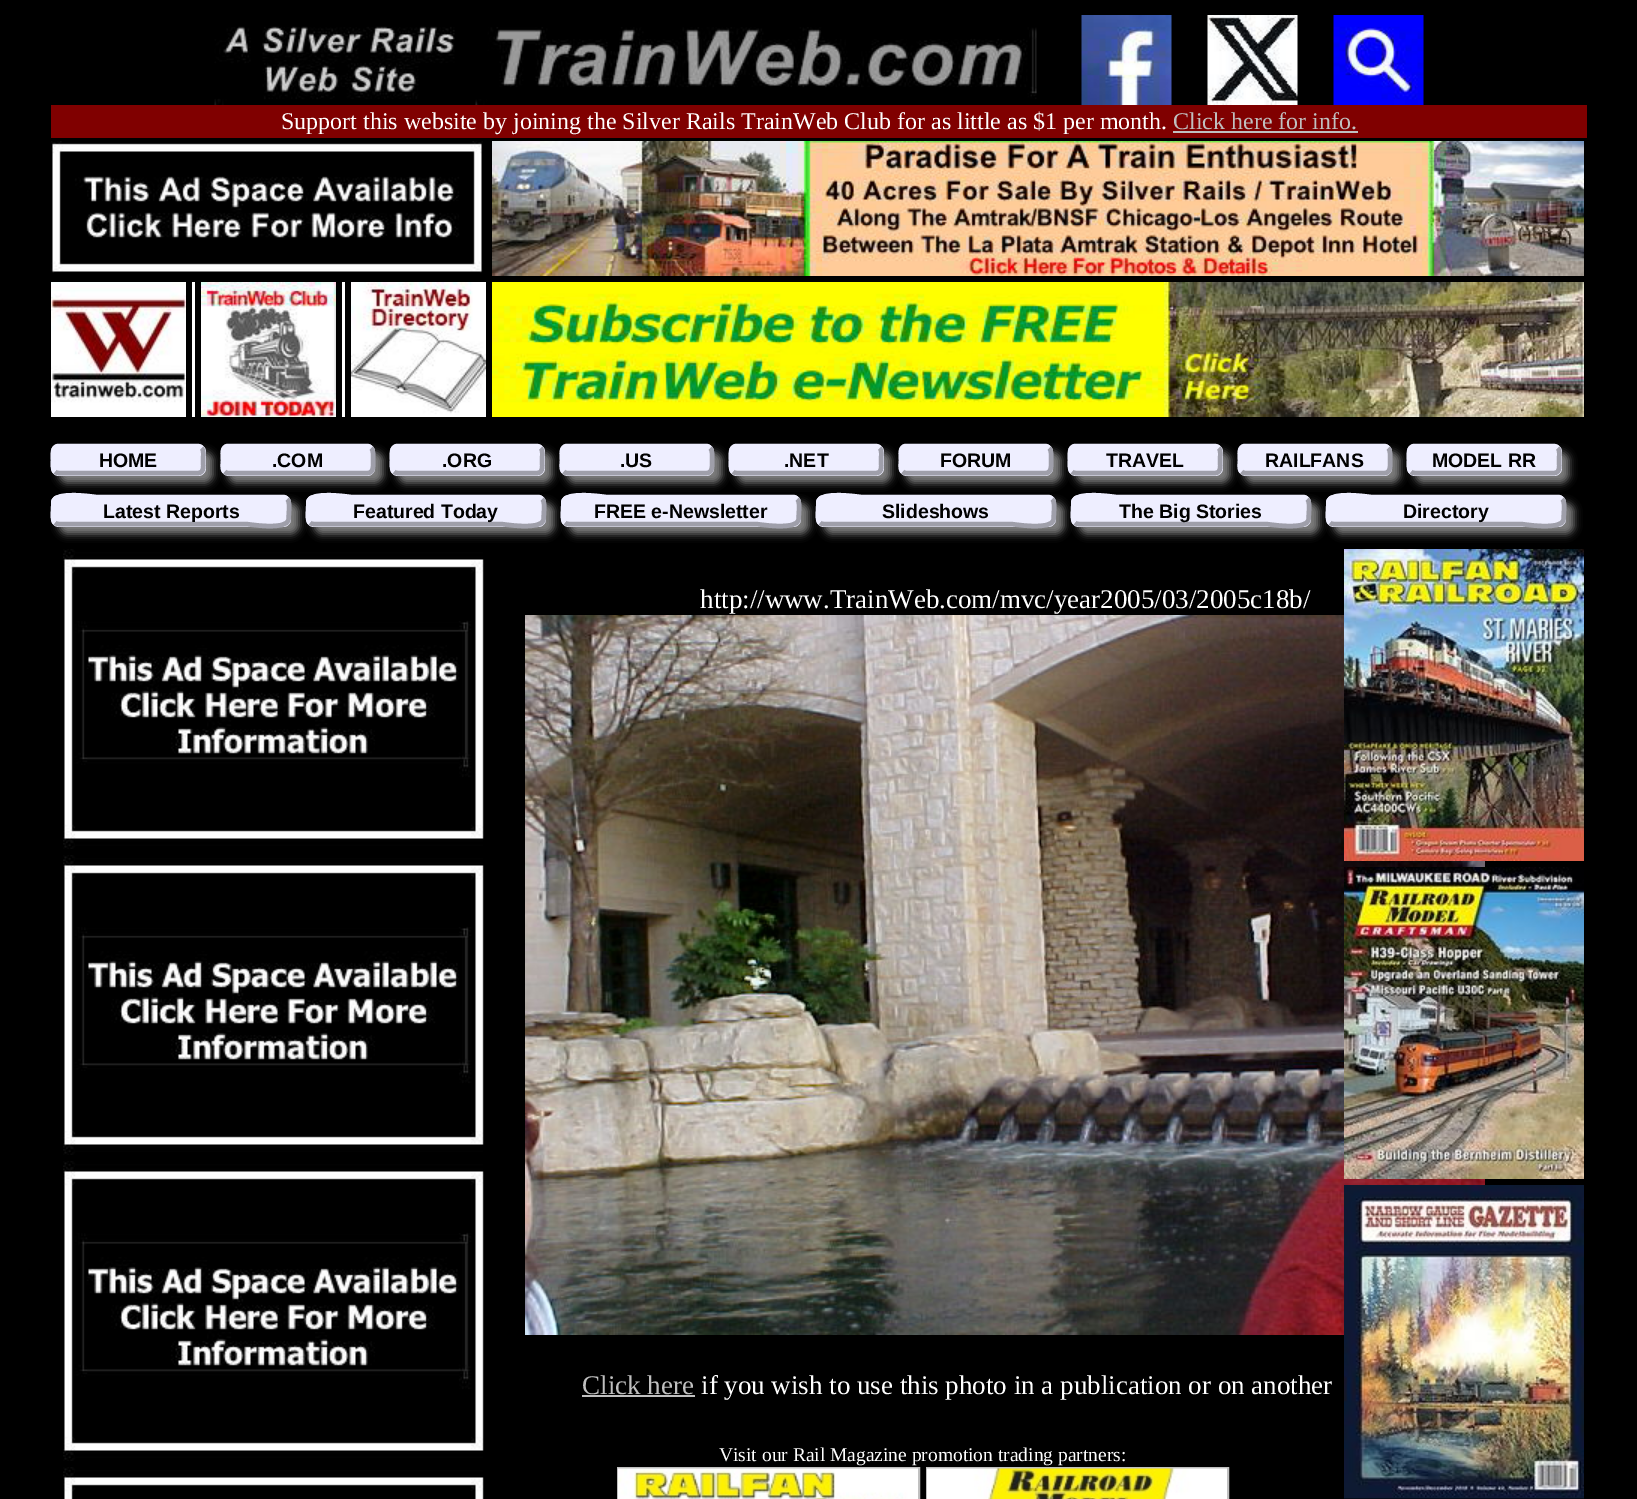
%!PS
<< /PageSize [1637 1499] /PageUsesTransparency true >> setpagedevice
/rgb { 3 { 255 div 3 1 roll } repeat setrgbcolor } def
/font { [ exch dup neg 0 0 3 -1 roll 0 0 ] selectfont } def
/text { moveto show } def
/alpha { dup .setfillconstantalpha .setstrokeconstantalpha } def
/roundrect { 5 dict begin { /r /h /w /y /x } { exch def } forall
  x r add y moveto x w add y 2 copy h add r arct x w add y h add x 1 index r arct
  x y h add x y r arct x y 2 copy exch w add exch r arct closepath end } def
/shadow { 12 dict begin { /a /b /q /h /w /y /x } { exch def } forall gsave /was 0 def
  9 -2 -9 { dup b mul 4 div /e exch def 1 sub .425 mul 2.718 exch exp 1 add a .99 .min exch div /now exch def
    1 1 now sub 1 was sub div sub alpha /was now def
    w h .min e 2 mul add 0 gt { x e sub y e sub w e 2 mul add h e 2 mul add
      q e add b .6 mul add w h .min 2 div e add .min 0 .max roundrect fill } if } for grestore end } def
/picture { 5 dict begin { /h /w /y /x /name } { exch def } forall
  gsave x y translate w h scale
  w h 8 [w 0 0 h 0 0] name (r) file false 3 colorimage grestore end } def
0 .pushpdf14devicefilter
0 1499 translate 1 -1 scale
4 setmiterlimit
0 0 0 rgb
0 0 1637 1499 rectfill
(img_01.rgb) 214 26 241 79 picture
(img_02.rgb) 475 27 562 78 picture
(img_03.rgb) 1081 15 91 90 picture
(img_04.rgb) 1207 15 91 90 picture
(img_05.rgb) 1333 15 91 90 picture
128 0 0 rgb
51 105 1536 33 rectfill
192 192 192 rgb
1173 131 185 2 rectfill
(img_06.rgb) 51 141 432 132 picture
(img_07.rgb) 492 141 1092 135 picture
(img_08.rgb) 51 282 135 135 picture
255 255 255 rgb
192 282 3 135 rectfill
(img_09.rgb) 201 282 135 135 picture
342 282 3 135 rectfill
(img_10.rgb) 351 282 135 135 picture
(img_11.rgb) 492 282 1092 135 picture
128 128 128 rgb
59 452 154 31 8 4 1 shadow
238 238 255 rgb
51 444 155 32 8 roundrect fill
159 159 170 rgb
4.5 setlinewidth
201.5 448 moveto 3 2.5 1.5 8.5 1.5 12 rcurveto 0 4 2 13 -5 13 rcurveto -139.5 0 rlineto -1.5 0 -2.5 -0.5 -3.5 -1.5 rcurveto stroke
238 238 255 rgb
55 471.5 moveto -3 -2.5 -2 -8.5 -2 -11.5 rcurveto 0 -4.5 -1.5 -13.5 5.5 -14 rcurveto 139.5 0 rlineto 1.5 0.5 2.5 1 3.5 2 rcurveto stroke
128 128 128 rgb
228 452 155 31 8 4 1 shadow
238 238 255 rgb
221 444 154 32 8 roundrect fill
159 159 170 rgb
371 448 moveto 3 2.5 2 8.5 2 12 rcurveto 0 4 1.5 13 -5.5 13 rcurveto -139.5 0 rlineto -1.5 0 -2.5 -0.5 -3.5 -1.5 rcurveto stroke
238 238 255 rgb
224.5 471.5 moveto -3 -2.5 -1.5 -8.5 -1.5 -11.5 rcurveto 0 -4.5 -2 -13.5 5 -14 rcurveto 139.5 0 rlineto 1.5 0.5 2.5 1 3.5 2 rcurveto stroke
128 128 128 rgb
398 452 154 31 8 4 1 shadow
238 238 255 rgb
390 444 155 32 8 roundrect fill
159 159 170 rgb
540.5 448 moveto 3 2.5 1.5 8.5 1.5 12 rcurveto 0 4 2 13 -5 13 rcurveto -139.5 0 rlineto -1.5 0 -2.5 -0.5 -3.5 -1.5 rcurveto stroke
238 238 255 rgb
394 471.5 moveto -3 -2.5 -2 -8.5 -2 -11.5 rcurveto 0 -4.5 -1.5 -13.5 5.5 -14 rcurveto 139.5 0 rlineto 1.5 0.5 2.5 1 3.5 2 rcurveto stroke
128 128 128 rgb
567 452 155 31 8 4 1 shadow
238 238 255 rgb
560 444 154 32 8 roundrect fill
159 159 170 rgb
710 448 moveto 3 2.5 2 8.5 2 12 rcurveto 0 4 1.5 13 -5.5 13 rcurveto -139.5 0 rlineto -1.5 0 -2.5 -0.5 -3.5 -1.5 rcurveto stroke
238 238 255 rgb
563.5 471.5 moveto -3 -2.5 -1.5 -8.5 -1.5 -11.5 rcurveto 0 -4.5 -2 -13.5 5 -14 rcurveto 139.5 0 rlineto 1.5 0.5 2.5 1 3.5 2 rcurveto stroke
128 128 128 rgb
737 452 154 31 8 4 1 shadow
238 238 255 rgb
729 444 155 32 8 roundrect fill
159 159 170 rgb
879.5 448 moveto 3 2.5 1.5 8.5 1.5 12 rcurveto 0 4 2 13 -5 13 rcurveto -139.5 0 rlineto -1.5 0 -2.5 -0.5 -3.5 -1.5 rcurveto stroke
238 238 255 rgb
733 471.5 moveto -3 -2.5 -2 -8.5 -2 -11.5 rcurveto 0 -4.5 -1.5 -13.5 5.5 -14 rcurveto 139.5 0 rlineto 1.5 0.5 2.5 1 3.5 2 rcurveto stroke
128 128 128 rgb
906 452 155 31 8 4 1 shadow
238 238 255 rgb
899 444 154 32 8 roundrect fill
159 159 170 rgb
1049 448 moveto 3 2.5 2 8.5 2 12 rcurveto 0 4 1.5 13 -5.5 13 rcurveto -139.5 0 rlineto -1.5 0 -2.5 -0.5 -3.5 -1.5 rcurveto stroke
238 238 255 rgb
902.5 471.5 moveto -3 -2.5 -1.5 -8.5 -1.5 -11.5 rcurveto 0 -4.5 -2 -13.5 5 -14 rcurveto 139.5 0 rlineto 1.5 0.5 2.5 1 3.5 2 rcurveto stroke
128 128 128 rgb
1076 452 154 31 8 4 1 shadow
238 238 255 rgb
1068 444 155 32 8 roundrect fill
159 159 170 rgb
1218.5 448 moveto 3 2.5 1.5 8.5 1.5 12 rcurveto 0 4 2 13 -5 13 rcurveto -139.5 0 rlineto -1.5 0 -2.5 -0.5 -3.5 -1.5 rcurveto stroke
238 238 255 rgb
1072 471.5 moveto -3 -2.5 -2 -8.5 -2 -11.5 rcurveto 0 -4.5 -1.5 -13.5 5.5 -14 rcurveto 139.5 0 rlineto 1.5 0.5 2.5 1 3.5 2 rcurveto stroke
128 128 128 rgb
1245 452 155 31 8 4 1 shadow
238 238 255 rgb
1238 444 154 32 8 roundrect fill
159 159 170 rgb
1388 448 moveto 3 2.5 2 8.5 2 12 rcurveto 0 4 1.5 13 -5.5 13 rcurveto -139.5 0 rlineto -1.5 0 -2.5 -0.5 -3.5 -1.5 rcurveto stroke
238 238 255 rgb
1241.5 471.5 moveto -3 -2.5 -1.5 -8.5 -1.5 -11.5 rcurveto 0 -4.5 -2 -13.5 5 -14 rcurveto 139.5 0 rlineto 1.5 0.5 2.5 1 3.5 2 rcurveto stroke
128 128 128 rgb
1415 452 154 31 8 4 1 shadow
238 238 255 rgb
1407 444 155 32 8 roundrect fill
159 159 170 rgb
1557.5 448 moveto 3 2.5 1.5 8.5 1.5 12 rcurveto 0 4 2 13 -5 13 rcurveto -139.5 0 rlineto -1.5 0 -2.5 -0.5 -3.5 -1.5 rcurveto stroke
238 238 255 rgb
1411 471.5 moveto -3 -2.5 -2 -8.5 -2 -11.5 rcurveto 0 -4.5 -1.5 -13.5 5.5 -14 rcurveto 139.5 0 rlineto 1.5 0.5 2.5 1 3.5 2 rcurveto stroke
128 128 128 rgb
59 503 240 31 8 4 1 shadow
238 238 255 rgb
51 495 240 32 8 roundrect fill
159 159 170 rgb
287 499 moveto 3 2.5 2 8.5 2 12 rcurveto -0.5 8.5 rlineto -1 11.5 -41 4.5 -42.5 4.5 rcurveto -187.5 0 rlineto -1.5 0 -2.5 -0.5 -3.5 -1.5 rcurveto stroke
238 238 255 rgb
55 522.5 moveto -3 -2.5 -2 -8.5 -2 -11.5 rcurveto 0.5 -9 rlineto 1 -11.5 41 -5 42.5 -5 rcurveto 187.5 0 rlineto 1.5 0.5 2.5 1 3.5 2 rcurveto stroke
128 128 128 rgb
314 503 240 31 8 4 1 shadow
238 238 255 rgb
306 495 240 32 8 roundrect fill
159 159 170 rgb
542 499 moveto 3 2.5 2 8.5 2 12 rcurveto -0.5 8.5 rlineto -1 11.5 -41 4.5 -42.5 4.5 rcurveto -187.5 0 rlineto -1.5 0 -2.5 -0.5 -3.5 -1.5 rcurveto stroke
238 238 255 rgb
310 522.5 moveto -3 -2.5 -2 -8.5 -2 -11.5 rcurveto 0.5 -9 rlineto 1 -11.5 41 -5 42.5 -5 rcurveto 187.5 0 rlineto 1.5 0.5 2.5 1 3.5 2 rcurveto stroke
128 128 128 rgb
569 503 240 31 8 4 1 shadow
238 238 255 rgb
561 495 240 32 8 roundrect fill
159 159 170 rgb
797 499 moveto 3 2.5 2 8.5 2 12 rcurveto -0.5 8.5 rlineto -1 11.5 -41 4.5 -42.5 4.5 rcurveto -187.5 0 rlineto -1.5 0 -2.5 -0.5 -3.5 -1.5 rcurveto stroke
238 238 255 rgb
565 522.5 moveto -3 -2.5 -2 -8.5 -2 -11.5 rcurveto 0.5 -9 rlineto 1 -11.5 41 -5 42.5 -5 rcurveto 187.5 0 rlineto 1.5 0.5 2.5 1 3.5 2 rcurveto stroke
128 128 128 rgb
824 503 240 31 8 4 1 shadow
238 238 255 rgb
816 495 240 32 8 roundrect fill
159 159 170 rgb
1052 499 moveto 3 2.5 2 8.5 2 12 rcurveto -0.5 8.5 rlineto -1 11.5 -41 4.5 -42.5 4.5 rcurveto -187.5 0 rlineto -1.5 0 -2.5 -0.5 -3.5 -1.5 rcurveto stroke
238 238 255 rgb
820 522.5 moveto -3 -2.5 -2 -8.5 -2 -11.5 rcurveto 0.5 -9 rlineto 1 -11.5 41 -5 42.5 -5 rcurveto 187.5 0 rlineto 1.5 0.5 2.5 1 3.5 2 rcurveto stroke
128 128 128 rgb
1079 503 240 31 8 4 1 shadow
238 238 255 rgb
1071 495 240 32 8 roundrect fill
159 159 170 rgb
1307 499 moveto 3 2.5 2 8.5 2 12 rcurveto -0.5 8.5 rlineto -1 11.5 -41 4.5 -42.5 4.5 rcurveto -187.5 0 rlineto -1.5 0 -2.5 -0.5 -3.5 -1.5 rcurveto stroke
238 238 255 rgb
1075 522.5 moveto -3 -2.5 -2 -8.5 -2 -11.5 rcurveto 0.5 -9 rlineto 1 -11.5 41 -5 42.5 -5 rcurveto 187.5 0 rlineto 1.5 0.5 2.5 1 3.5 2 rcurveto stroke
128 128 128 rgb
1334 503 240 31 8 4 1 shadow
238 238 255 rgb
1326 495 240 32 8 roundrect fill
159 159 170 rgb
1562 499 moveto 3 2.5 2 8.5 2 12 rcurveto -0.5 8.5 rlineto -1 11.5 -41 4.5 -42.5 4.5 rcurveto -187.5 0 rlineto -1.5 0 -2.5 -0.5 -3.5 -1.5 rcurveto stroke
238 238 255 rgb
1330 522.5 moveto -3 -2.5 -2 -8.5 -2 -11.5 rcurveto 0.5 -9 rlineto 1 -11.5 41 -5 42.5 -5 rcurveto 187.5 0 rlineto 1.5 0.5 2.5 1 3.5 2 rcurveto stroke
(img_12.rgb) 63 549 421 300 picture
(img_12.rgb) 63 855 421 300 picture
(img_12.rgb) 63 1161 421 300 picture
(img_13.rgb) 63 1467 421 32 picture
(img_14.rgb) 525 615 960 720 picture
192 192 192 rgb
582 1395 113 2 rectfill
2 setlinewidth
618 1468 301 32 rectstroke
927 1468 301 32 rectstroke
(img_15.rgb) 618 1468 300 31 picture
(img_16.rgb) 927 1468 300 31 picture
(img_17.rgb) 1344 549 240 312 picture
(img_18.rgb) 1344 867 240 312 picture
(img_19.rgb) 1344 1185 240 314 picture
/LiberationSerif-Regular 24 font
255 255 255 rgb
(Support this website by joining the Silver Rails TrainWeb Club for as little as $1 per month.) 281 129 text
192 192 192 rgb
(Click here for info.) 1173 129 text
/LiberationSans-Bold 19.5 font
0 0 0 rgb
(HOME) 99 467 text
(.COM) 272 467 text
(.ORG) 442 467 text
(.US) 620 467 text
(.NET) 784 467 text
(FORUM) 940 467 text
(TRAVEL) 1106 467 text
(RAILFANS) 1265 467 text
(MODEL RR) 1432 467 text
(Latest Reports) 103 518 text
(Featured Today) 353 518 text
(FREE e-Newsletter) 594 518 text
(Slideshows) 882 518 text
(The Big Stories) 1119 518 text
(Directory) 1403 518 text
/LiberationSerif-Regular 27 font
255 255 255 rgb
(http://www.TrainWeb.com/mvc/year2005/03/2005c18b/) 700 608 text
192 192 192 rgb
(Click here) 582 1394 text
255 255 255 rgb
(if you wish to use this photo in a publication or on another) 701 1394 text
/LiberationSerif-Regular 19.5 font
(Visit our Rail Magazine promotion trading partners:) 719 1461 text
.poppdf14devicefilter showpage
